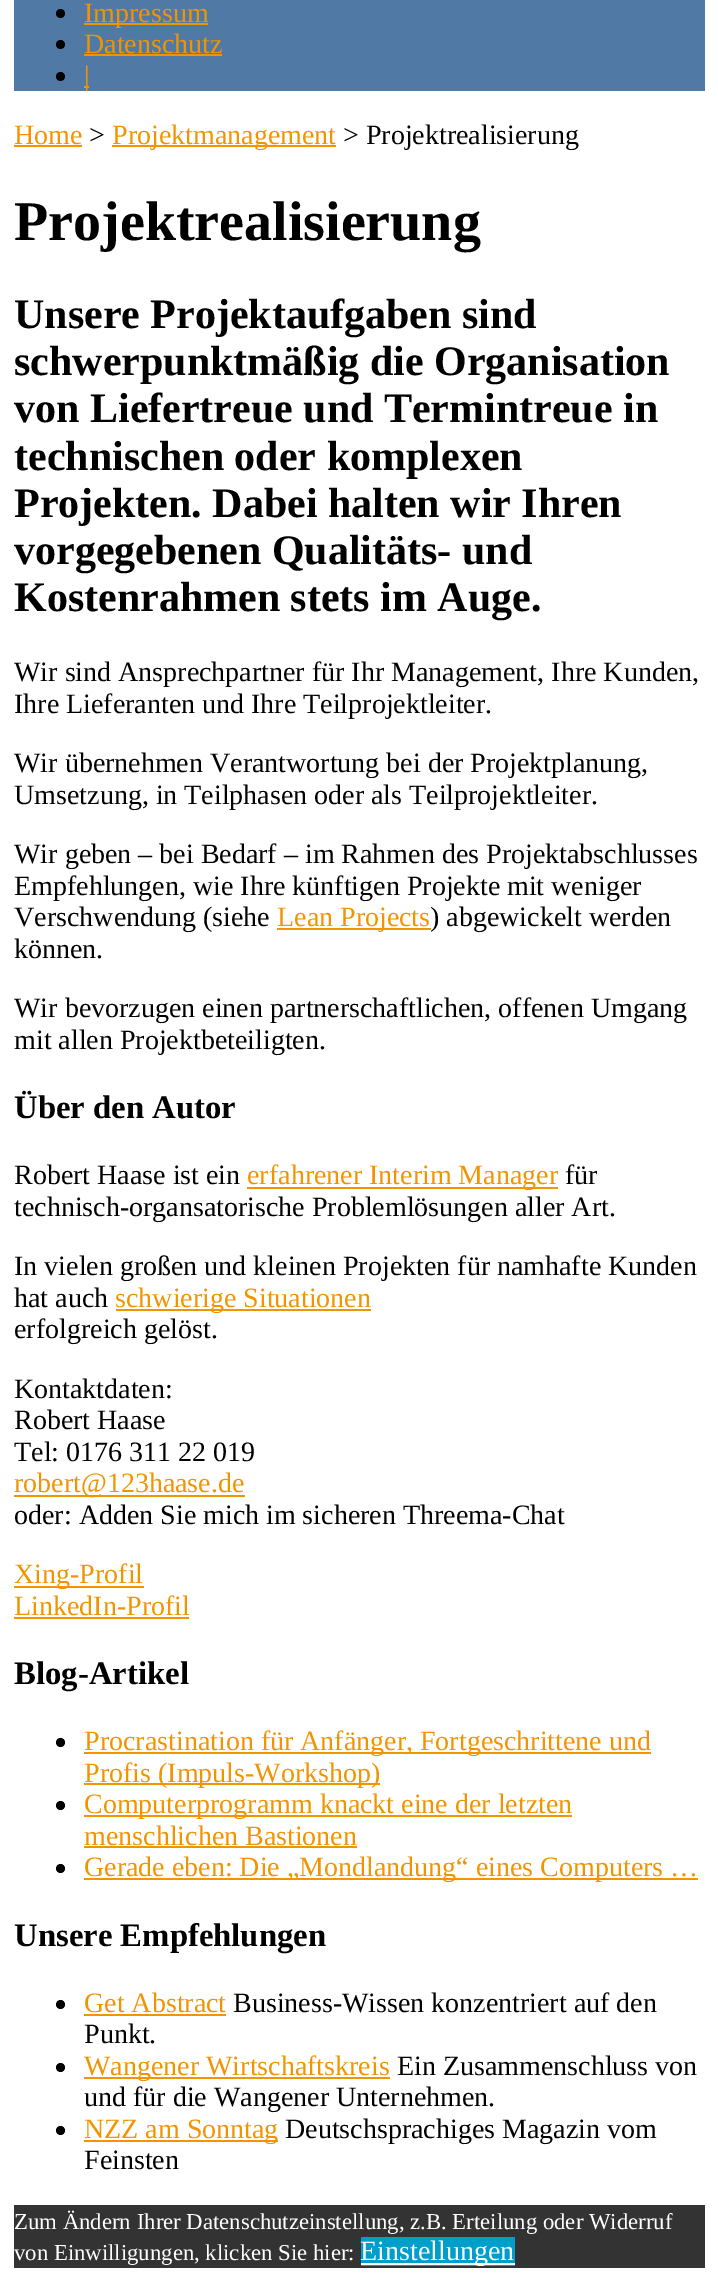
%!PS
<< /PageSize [718 2273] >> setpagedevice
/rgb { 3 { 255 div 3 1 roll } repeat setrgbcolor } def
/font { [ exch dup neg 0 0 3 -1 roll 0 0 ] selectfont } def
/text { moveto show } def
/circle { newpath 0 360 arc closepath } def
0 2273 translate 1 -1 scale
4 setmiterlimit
255 255 255 rgb
0 0 718 2273 rectfill
80 122 165 rgb
14 0 691 91 rectfill
0 0 0 rgb
60.5 13.5 4.5 circle fill
242 148 0 rgb
84 23 124 2 rectfill
0 0 0 rgb
60.5 44.5 4.5 circle fill
242 148 0 rgb
84 54 138 2 rectfill
0 0 0 rgb
60.5 76.5 4.5 circle fill
242 148 0 rgb
84 86 5 2 rectfill
14 145 68 2 rectfill
112 145 224 2 rectfill
277 928 154 2 rectfill
247 1187 311 2 rectfill
116 1309 255 2 rectfill
14 1495 231 2 rectfill
14 1586 130 2 rectfill
14 1617 175 2 rectfill
0 0 0 rgb
60.5 1742.5 4.5 circle fill
242 148 0 rgb
84 1752 567 2 rectfill
84 1783 296 2 rectfill
0 0 0 rgb
60.5 1805.5 4.5 circle fill
242 148 0 rgb
84 1815 488 2 rectfill
84 1846 273 2 rectfill
0 0 0 rgb
60.5 1868.5 4.5 circle fill
242 148 0 rgb
84 1878 614 2 rectfill
0 0 0 rgb
60.5 2004.5 4.5 circle fill
242 148 0 rgb
84 2014 142 2 rectfill
0 0 0 rgb
60.5 2067.5 4.5 circle fill
242 148 0 rgb
84 2077 306 2 rectfill
0 0 0 rgb
60.5 2130.5 4.5 circle fill
242 148 0 rgb
84 2140 194 2 rectfill
51 51 51 rgb
14 2205 691 63 rectfill
0 158 203 rgb
361 2237 154 29 rectfill
255 255 255 rgb
361 2263 154 2 rectfill
/LiberationSerif-Regular 28 font
242 148 0 rgb
(Impressum) 84 22 text
(Datenschutz) 84 53 text
(|) 84 85 text
(Home) 14 144 text
0 0 0 rgb
(>) 89 144 text
242 148 0 rgb
(Projektmanagement) 112 144 text
0 0 0 rgb
(> Projektrealisierung) 343 144 text
/LiberationSerif-Bold 56 font
(Projektrealisierung) 14 240 text
/LiberationSerif-Bold 42 font
(Unsere Projektaufgaben sind) 14 328 text
(schwerpunktmäßig die Organisation) 14 375 text
(von Liefertreue und Termintreue in) 14 422 text
(technischen oder komplexen) 14 470 text
(Projekten. Dabei halten wir Ihren) 14 517 text
(vorgegebenen Qualitäts- und) 14 564 text
(Kostenrahmen stets im Auge.) 14 611 text
/LiberationSerif-Regular 28 font
(Wir sind Ansprechpartner für Ihr Management, Ihre Kunden,) 14 681 text
(Ihre Lieferanten und Ihre Teilprojektleiter.) 14 713 text
(Wir übernehmen Verantwortung bei der Projektplanung,) 14 772 text
(Umsetzung, in Teilphasen oder als Teilprojektleiter.) 14 804 text
(Wir geben – bei Bedarf – im Rahmen des Projektabschlusses) 14 863 text
(Empfehlungen, wie Ihre künftigen Projekte mit weniger) 14 895 text
(Verschwendung \(siehe) 14 926 text
242 148 0 rgb
(Lean Projects) 277 926 text
0 0 0 rgb
(\) abgewickelt werden) 430 926 text
(können.) 14 958 text
(Wir bevorzugen einen partnerschaftlichen, offenen Umgang) 14 1017 text
(mit allen Projektbeteiligten.) 14 1049 text
/LiberationSerif-Bold 32.75 font
(Über den Autor) 14 1118 text
/LiberationSerif-Regular 28 font
(Robert Haase ist ein) 14 1184 text
242 148 0 rgb
(erfahrener Interim Manager) 247 1184 text
0 0 0 rgb
(für) 565 1184 text
(technisch-organsatorische Problemlösungen aller Art.) 14 1216 text
(In vielen großen und kleinen Projekten für namhafte Kunden) 14 1275 text
(hat auch) 14 1307 text
242 148 0 rgb
(schwierige Situationen) 115 1307 text
0 0 0 rgb
(erfolgreich gelöst.) 14 1338 text
(Kontaktdaten:) 14 1398 text
(Robert Haase) 14 1429 text
(Tel: 0176 311 22 019) 14 1461 text
242 148 0 rgb
(robert@123haase.de) 14 1492 text
0 0 0 rgb
(oder: Adden Sie mich im sicheren Threema-Chat) 14 1524 text
242 148 0 rgb
(Xing-Profil) 14 1583 text
(LinkedIn-Profil) 14 1615 text
/LiberationSerif-Bold 32.75 font
0 0 0 rgb
(Blog-Artikel) 14 1684 text
/LiberationSerif-Regular 28 font
242 148 0 rgb
(Procrastination für Anfänger, Fortgeschrittene und) 84 1750 text
(Profis \(Impuls-Workshop\)) 84 1782 text
(Computerprogramm knackt eine der letzten) 84 1813 text
(menschlichen Bastionen) 84 1845 text
(Gerade eben: Die „Mondlandung“ eines Computers …) 84 1876 text
/LiberationSerif-Bold 32.75 font
0 0 0 rgb
(Unsere Empfehlungen) 14 1946 text
/LiberationSerif-Regular 28 font
242 148 0 rgb
(Get Abstract) 84 2012 text
0 0 0 rgb
(Business-Wissen konzentriert auf den) 233 2012 text
(Punkt.) 84 2043 text
242 148 0 rgb
(Wangener Wirtschaftskreis) 84 2075 text
0 0 0 rgb
(Ein Zusammenschluss von) 397 2075 text
(und für die Wangener Unternehmen.) 84 2106 text
242 148 0 rgb
(NZZ am Sonntag) 84 2138 text
0 0 0 rgb
(Deutschsprachiges Magazin vom) 285 2138 text
(Feinsten) 84 2169 text
/LiberationSerif-Regular 22.75 font
255 255 255 rgb
(Zum Ändern Ihrer Datenschutzeinstellung, z.B. Erteilung oder Widerruf) 14 2229 text
(von Einwilligungen, klicken Sie hier:) 14 2260 text
/LiberationSerif-Regular 28 font
(Einstellungen) 360 2260 text
showpage
